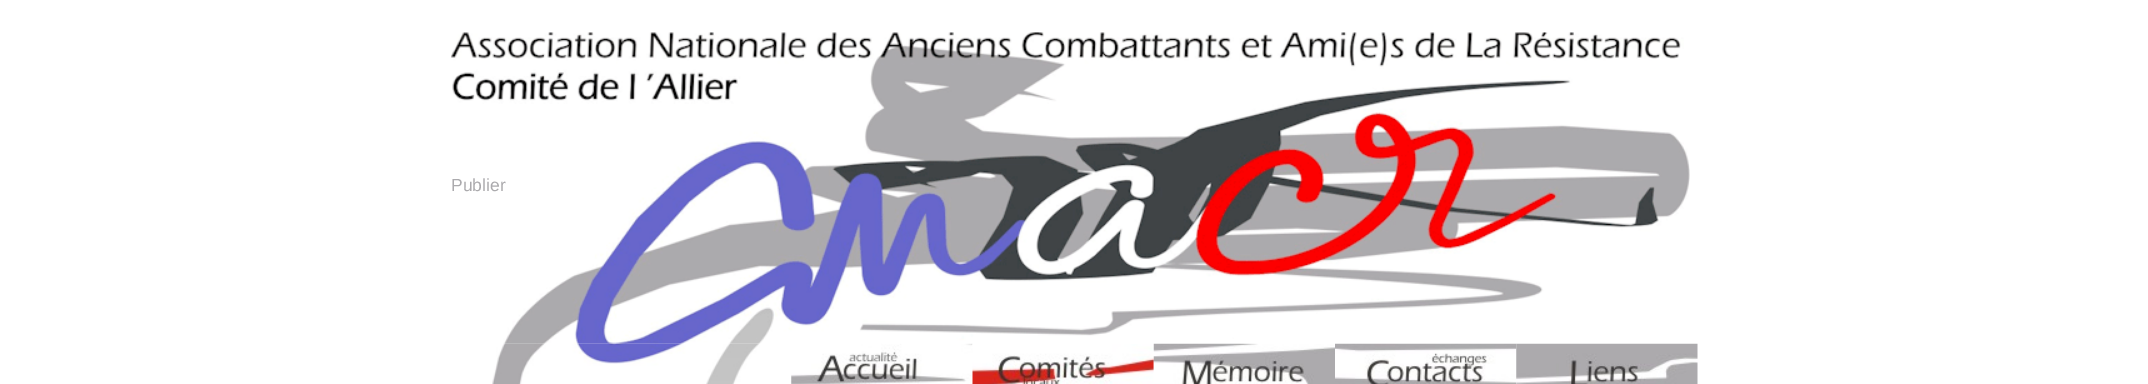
%!PS
<< /PageSize [2148 384] >> setpagedevice
/rgb { 3 { 255 div 3 1 roll } repeat setrgbcolor } def
/font { [ exch dup neg 0 0 3 -1 roll 0 0 ] selectfont } def
/text { moveto show } def
/picture { 5 dict begin { /h /w /y /x /name } { exch def } forall
  gsave x y translate w h scale
  w h 8 [w 0 0 h 0 0] name (r) file false 3 colorimage grestore end } def
0 384 translate 1 -1 scale
4 setmiterlimit
255 255 255 rgb
0 0 2148 384 rectfill
(img_01.rgb) 451 32 1239 312 picture
(img_02.rgb) 492 343 268 41 picture
(img_03.rgb) 791 343 182 41 picture
(img_04.rgb) 972 344 182 40 picture
(img_05.rgb) 1153 343 182 41 picture
(img_06.rgb) 1335 343 182 41 picture
(img_07.rgb) 1516 343 182 41 picture
/LiberationSans-Regular 17.5 font
171 170 173 rgb
(Publier) 451 191 text
showpage
